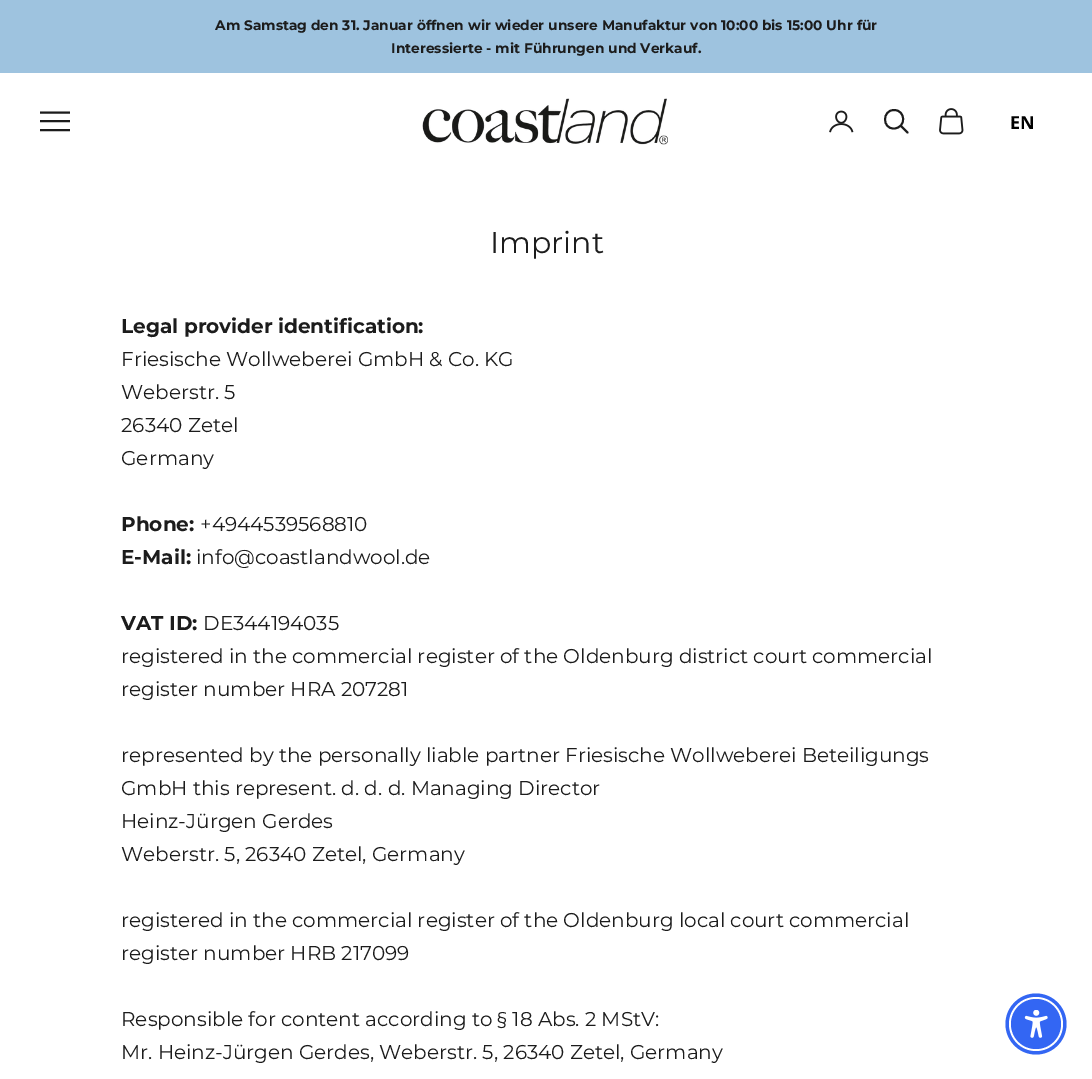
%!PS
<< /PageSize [1092 1079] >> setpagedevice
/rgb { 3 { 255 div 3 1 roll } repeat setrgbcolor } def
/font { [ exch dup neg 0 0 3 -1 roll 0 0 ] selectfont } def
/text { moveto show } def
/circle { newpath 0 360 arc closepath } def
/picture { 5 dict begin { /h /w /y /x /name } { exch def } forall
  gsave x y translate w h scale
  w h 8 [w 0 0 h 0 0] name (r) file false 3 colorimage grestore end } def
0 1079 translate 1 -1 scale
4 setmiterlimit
255 255 255 rgb
0 0 1092 1079 rectfill
158 195 223 rgb
0 0 1092 73 rectfill
28 28 28 rgb
1.9 setlinewidth
2 setlinecap
41 130 moveto 28 0 rlineto 41 121 moveto 28 0 rlineto 41 112.5 moveto 28 0 rlineto stroke
(img_01.rgb) 422 98 246 47 picture
(img_02.rgb) 829 110 25 23 picture
0 setlinecap
894 110 moveto -12 0 -12 19 0 18.5 rcurveto 12.5 -0.5 12 -18.5 0 -18.5 rcurveto closepath stroke
1 setlinecap
901 126 moveto 6.5 6.5 rlineto stroke
(img_03.rgb) 939 108 25 27 picture
51 102 243 rgb
1036 1024 30.5 circle fill
255 255 255 rgb
1036 1024 27 circle fill
51 102 243 rgb
1036 1024 25 circle fill
(img_04.rgb) 1024 1010 24 28 picture
/Montserrat-Bold 13.75 font
28 28 28 rgb
(Am Samstag den 31. Januar öffnen wir wieder unsere Manufaktur von 10:00 bis 15:00 Uhr für) 215 30 text
(Interessierte - mit Führungen und Verkauf.) 391 53 text
/NotoSans-Bold 18 font
0 0 0 rgb
(EN) 1010 129 text
/Montserrat-Regular 30 font
28 28 28 rgb
(Imprint) 490 253 text
/Montserrat-Bold 20 font
(Legal provider identification:) 121 333 text
/Montserrat-Regular 20 font
(Friesische Wollweberei GmbH & Co. KG) 121 366 text
(Weberstr. 5) 121 399 text
(26340 Zetel) 121 432 text
(Germany) 121 465 text
/Montserrat-Bold 20 font
(Phone:) 121 531 text
/Montserrat-Regular 20 font
(+4944539568810) 200 531 text
/Montserrat-Bold 20 font
(E-Mail:) 121 564 text
/Montserrat-Regular 20 font
(info@coastlandwool.de) 196 564 text
/Montserrat-Bold 20 font
(VAT ID:) 121 630 text
/Montserrat-Regular 20 font
(DE344194035) 203 630 text
(registered in the commercial register of the Oldenburg district court commercial) 121 663 text
(register number HRA 207281) 121 696 text
(represented by the personally liable partner Friesische Wollweberei Beteiligungs) 121 762 text
(GmbH this represent. d. d. d. Managing Director) 121 795 text
(Heinz-Jürgen Gerdes) 121 828 text
(Weberstr. 5, 26340 Zetel, Germany) 121 861 text
(registered in the commercial register of the Oldenburg local court commercial) 121 927 text
(register number HRB 217099) 121 960 text
(Responsible for content according to § 18 Abs. 2 MStV:) 121 1026 text
(Mr. Heinz-Jürgen Gerdes, Weberstr. 5, 26340 Zetel, Germany) 121 1059 text
showpage
